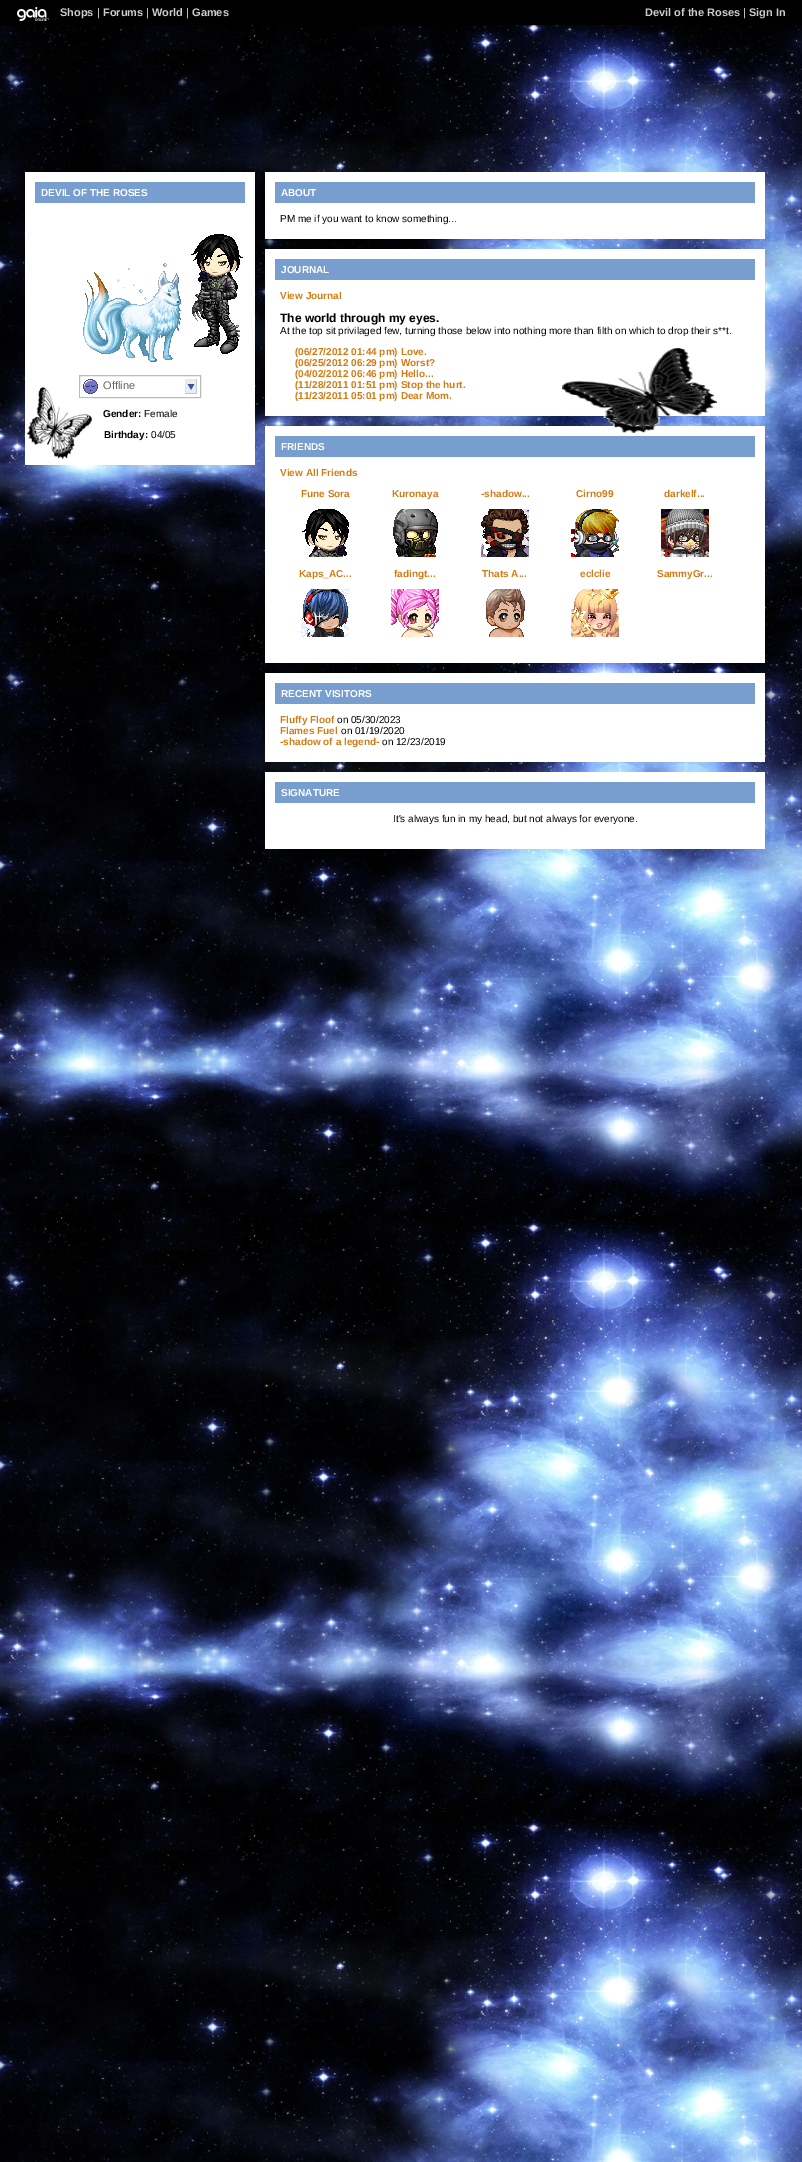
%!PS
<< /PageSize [802 2162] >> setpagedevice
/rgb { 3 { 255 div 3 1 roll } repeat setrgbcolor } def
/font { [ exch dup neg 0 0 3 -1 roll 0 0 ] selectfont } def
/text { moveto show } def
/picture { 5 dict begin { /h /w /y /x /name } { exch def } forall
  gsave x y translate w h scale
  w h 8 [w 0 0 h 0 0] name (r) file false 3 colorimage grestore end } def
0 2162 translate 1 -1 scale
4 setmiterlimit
255 255 255 rgb
0 0 802 2162 rectfill
(img_01.rgb) 0 25 802 2137 picture
0 0 0 rgb
0 0 802 25 rectfill
(img_02.rgb) 17 7 32 14 picture
255 255 255 rgb
25 172 230 293 rectfill
120 158 207 rgb
35 182 210 21 rectfill
(img_03.rgb) 83 263 98 99 picture
187 187 187 rgb
79.5 375.5 121 22 rectstroke
(img_04.rgb) 185 379 12 15 picture
(img_05.rgb) 83 379 15 15 picture
255 255 255 rgb
265 172 500 67 rectfill
120 158 207 rgb
275 182 480 21 rectfill
255 255 255 rgb
265 249 500 167 rectfill
120 158 207 rgb
275 259 480 21 rectfill
255 255 255 rgb
265 426 500 237 rectfill
120 158 207 rgb
275 436 480 21 rectfill
(img_06.rgb) 302 509 47 48 picture
(img_07.rgb) 393 509 45 48 picture
(img_08.rgb) 481 509 48 48 picture
(img_09.rgb) 571 509 48 48 picture
(img_10.rgb) 661 509 48 48 picture
(img_11.rgb) 301 589 48 48 picture
(img_12.rgb) 391 589 48 48 picture
(img_13.rgb) 486 589 39 48 picture
(img_14.rgb) 571 589 48 48 picture
255 255 255 rgb
265 673 500 89 rectfill
120 158 207 rgb
275 683 480 21 rectfill
255 255 255 rgb
265 772 500 77 rectfill
120 158 207 rgb
275 782 480 21 rectfill
(img_15.rgb) 191 234 52 120 picture
(img_16.rgb) 27 387 65 72 picture
(img_17.rgb) 562 348 155 85 picture
/LiberationSans-Bold 11 font
204 204 204 rgb
(Shops) 60 16 text
/LiberationSans-Regular 11 font
255 255 255 rgb
(|) 97 16 text
/LiberationSans-Bold 11 font
204 204 204 rgb
(Forums) 103 16 text
/LiberationSans-Regular 11 font
255 255 255 rgb
(|) 146 16 text
/LiberationSans-Bold 11 font
204 204 204 rgb
(World) 152 16 text
/LiberationSans-Regular 11 font
255 255 255 rgb
(|) 186 16 text
/LiberationSans-Bold 11 font
204 204 204 rgb
(Games) 192 16 text
(Devil of the Roses) 645 16 text
/LiberationSans-Regular 11 font
255 255 255 rgb
(|) 743 16 text
/LiberationSans-Bold 11 font
204 204 204 rgb
(Sign In) 749 16 text
/LiberationSans-Bold 10 font
255 255 255 rgb
(DEVIL OF THE ROSES) 41 196 text
/LiberationSans-Regular 11 font
102 102 102 rgb
(Offline) 103 389 text
/LiberationSans-Bold 10 font
0 0 0 rgb
(Gender:) 103 417 text
/LiberationSans-Regular 10 font
(Female) 144 417 text
/LiberationSans-Bold 10 font
(Birthday:) 104 438 text
/LiberationSans-Regular 10 font
(04/05) 151 438 text
/LiberationSans-Bold 10 font
255 255 255 rgb
(ABOUT) 281 196 text
/LiberationSans-Regular 10 font
0 0 0 rgb
(PM me if you want to know something...) 280 222 text
/LiberationSans-Bold 10 font
255 255 255 rgb
(JOURNAL) 281 273 text
211 123 20 rgb
(View Journal) 280 299 text
/LiberationSans-Bold 12 font
0 0 0 rgb
(The world through my eyes.) 280 322 text
/LiberationSans-Regular 10 font
(At the top sit privilaged few, turning those below into nothing more than filth on which to drop their s**t.) 280 334 text
/LiberationSans-Bold 10 font
211 123 20 rgb
(\(06/27/2012 01:44 pm\) Love.) 295 355 text
(\(06/25/2012 06:29 pm\) Worst?) 295 366 text
(\(04/02/2012 06:46 pm\) Hello...) 295 377 text
(\(11/28/2011 01:51 pm\) Stop the hurt.) 295 388 text
(\(11/23/2011 05:01 pm\) Dear Mom.) 295 399 text
255 255 255 rgb
(FRIENDS) 281 450 text
211 123 20 rgb
(View All Friends) 280 476 text
(Fune Sora) 301 497 text
(Kuronaya) 392 497 text
(-shadow...) 481 497 text
(Cirno99) 576 497 text
(darkelf...) 664 497 text
(Kaps_AC...) 299 577 text
(fadingt...) 394 577 text
(Thats A...) 482 577 text
(eclclie) 580 577 text
(SammyGr...) 657 577 text
255 255 255 rgb
(RECENT VISITORS) 281 697 text
211 123 20 rgb
(Fluffy Floof) 280 723 text
/LiberationSans-Regular 10 font
0 0 0 rgb
(on 05/30/2023) 337 723 text
/LiberationSans-Bold 10 font
211 123 20 rgb
(Flames Fuel) 280 734 text
/LiberationSans-Regular 10 font
0 0 0 rgb
(on 01/19/2020) 341 734 text
/LiberationSans-Bold 10 font
211 123 20 rgb
(-shadow of a legend-) 280 745 text
/LiberationSans-Regular 10 font
0 0 0 rgb
(on 12/23/2019) 382 745 text
/LiberationSans-Bold 10 font
255 255 255 rgb
(SIGNATURE) 281 796 text
/LiberationSans-Regular 10 font
0 0 0 rgb
(It's always fun in my head, but not always for everyone.) 393 822 text
showpage
